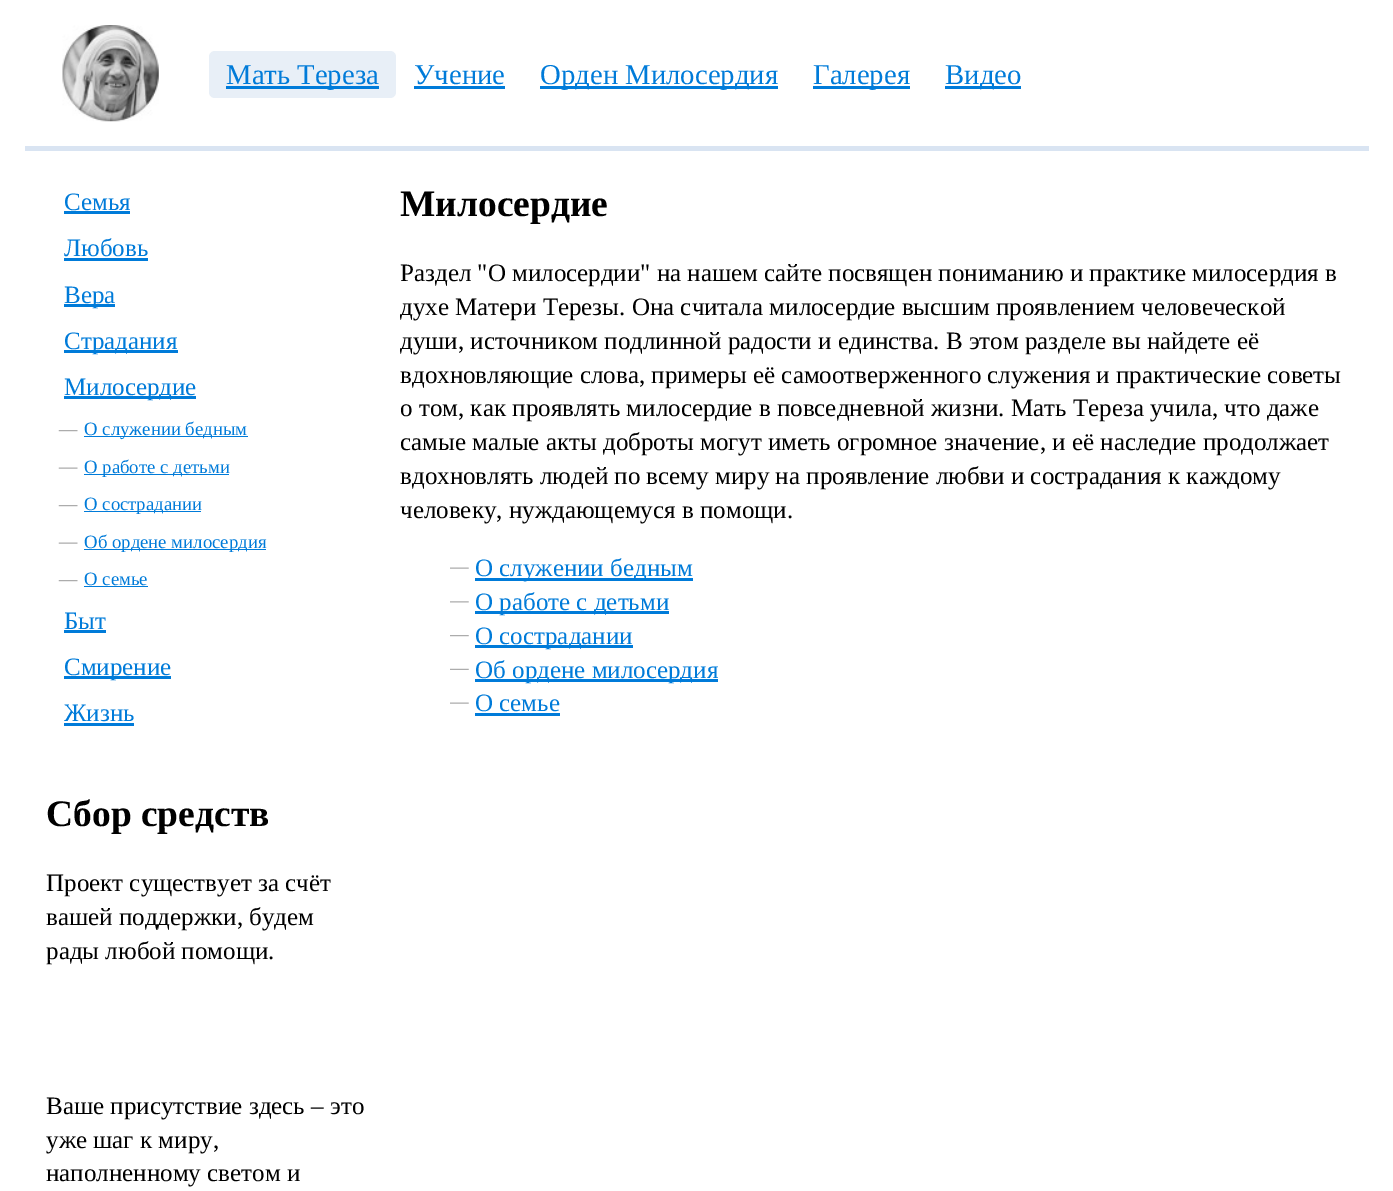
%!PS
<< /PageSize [1393 1191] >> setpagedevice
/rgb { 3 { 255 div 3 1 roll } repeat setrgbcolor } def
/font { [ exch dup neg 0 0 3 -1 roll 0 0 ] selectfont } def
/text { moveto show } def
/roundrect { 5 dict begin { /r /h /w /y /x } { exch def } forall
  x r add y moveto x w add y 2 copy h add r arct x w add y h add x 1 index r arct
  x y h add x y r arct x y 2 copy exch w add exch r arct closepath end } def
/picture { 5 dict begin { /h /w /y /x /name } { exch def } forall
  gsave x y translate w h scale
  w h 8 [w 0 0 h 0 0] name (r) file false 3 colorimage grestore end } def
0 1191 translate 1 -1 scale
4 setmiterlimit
255 255 255 rgb
0 0 1393 1191 rectfill
217 228 242 rgb
25 146 1344 5 rectfill
(img_01.rgb) 62 25 97 97 picture
232 239 247 rgb
209 51 187 47 6 roundrect fill
0 123 217 rgb
226 86 153 3 rectfill
414 86 91 3 rectfill
540 86 238 3 rectfill
813 86 97 3 rectfill
945 86 76 3 rectfill
64 211 66 3 rectfill
64 258 84 3 rectfill
64 304 51 3 rectfill
64 350 114 3 rectfill
64 396 132 3 rectfill
(img_02.rgb) 58 430 20 2 picture
84 436 164 1 rectfill
(img_03.rgb) 58 467 20 2 picture
84 474 145 1 rectfill
(img_02.rgb) 58 505 20 2 picture
84 511 117 1 rectfill
(img_03.rgb) 58 542 20 2 picture
84 549 182 1 rectfill
(img_02.rgb) 58 580 20 2 picture
84 586 64 1 rectfill
64 630 42 3 rectfill
64 676 107 3 rectfill
64 723 70 3 rectfill
(img_04.rgb) 450 567 19 2 picture
475 578 218 3 rectfill
(img_05.rgb) 450 601 19 2 picture
475 611 194 3 rectfill
(img_06.rgb) 450 635 19 2 picture
475 645 158 3 rectfill
(img_07.rgb) 450 668 19 2 picture
475 679 243 3 rectfill
(img_04.rgb) 450 702 19 2 picture
475 713 85 3 rectfill
/LiberationSerif-Regular 28.75 font
(Мать Тереза) 226 84 text
(Учение) 414 84 text
(Орден Милосердия) 540 84 text
(Галерея) 813 84 text
(Видео) 945 84 text
/LiberationSerif-Regular 25 font
(Семья) 64 210 text
(Любовь) 64 256 text
(Вера) 64 303 text
(Страдания) 64 349 text
(Милосердие) 64 395 text
/LiberationSerif-Regular 18.75 font
(О служении бедным) 84 435 text
(О работе с детьми) 84 473 text
(О сострадании) 84 510 text
(Об ордене милосердия) 84 548 text
(О семье) 84 585 text
/LiberationSerif-Regular 25 font
(Быт) 64 629 text
(Смирение) 64 675 text
(Жизнь) 64 721 text
/LiberationSerif-Bold 37.5 font
0 0 0 rgb
(Сбор средств) 46 826 text
/LiberationSerif-Regular 25 font
(Проект существует за счёт) 46 891 text
(вашей поддержки, будем) 46 925 text
(рады любой помощи.) 46 959 text
(Ваше присутствие здесь – это) 46 1114 text
(уже шаг к миру,) 46 1148 text
(наполненному светом и) 46 1181 text
/LiberationSerif-Bold 37.5 font
(Милосердие) 400 216 text
/LiberationSerif-Regular 25 font
(Раздел "О милосердии" на нашем сайте посвящен пониманию и практике милосердия в) 400 281 text
(духе Матери Терезы. Она считала милосердие высшим проявлением человеческой) 400 315 text
(души, источником подлинной радости и единства. В этом разделе вы найдете её) 400 349 text
(вдохновляющие слова, примеры её самоотверженного служения и практические советы) 400 383 text
(о том, как проявлять милосердие в повседневной жизни. Мать Тереза учила, что даже) 400 416 text
(самые малые акты доброты могут иметь огромное значение, и её наследие продолжает) 400 450 text
(вдохновлять людей по всему миру на проявление любви и сострадания к каждому) 400 484 text
(человеку, нуждающемуся в помощи.) 400 518 text
0 123 217 rgb
(О служении бедным) 475 576 text
(О работе с детьми) 475 610 text
(О сострадании) 475 644 text
(Об ордене милосердия) 475 678 text
(О семье) 475 711 text
showpage
